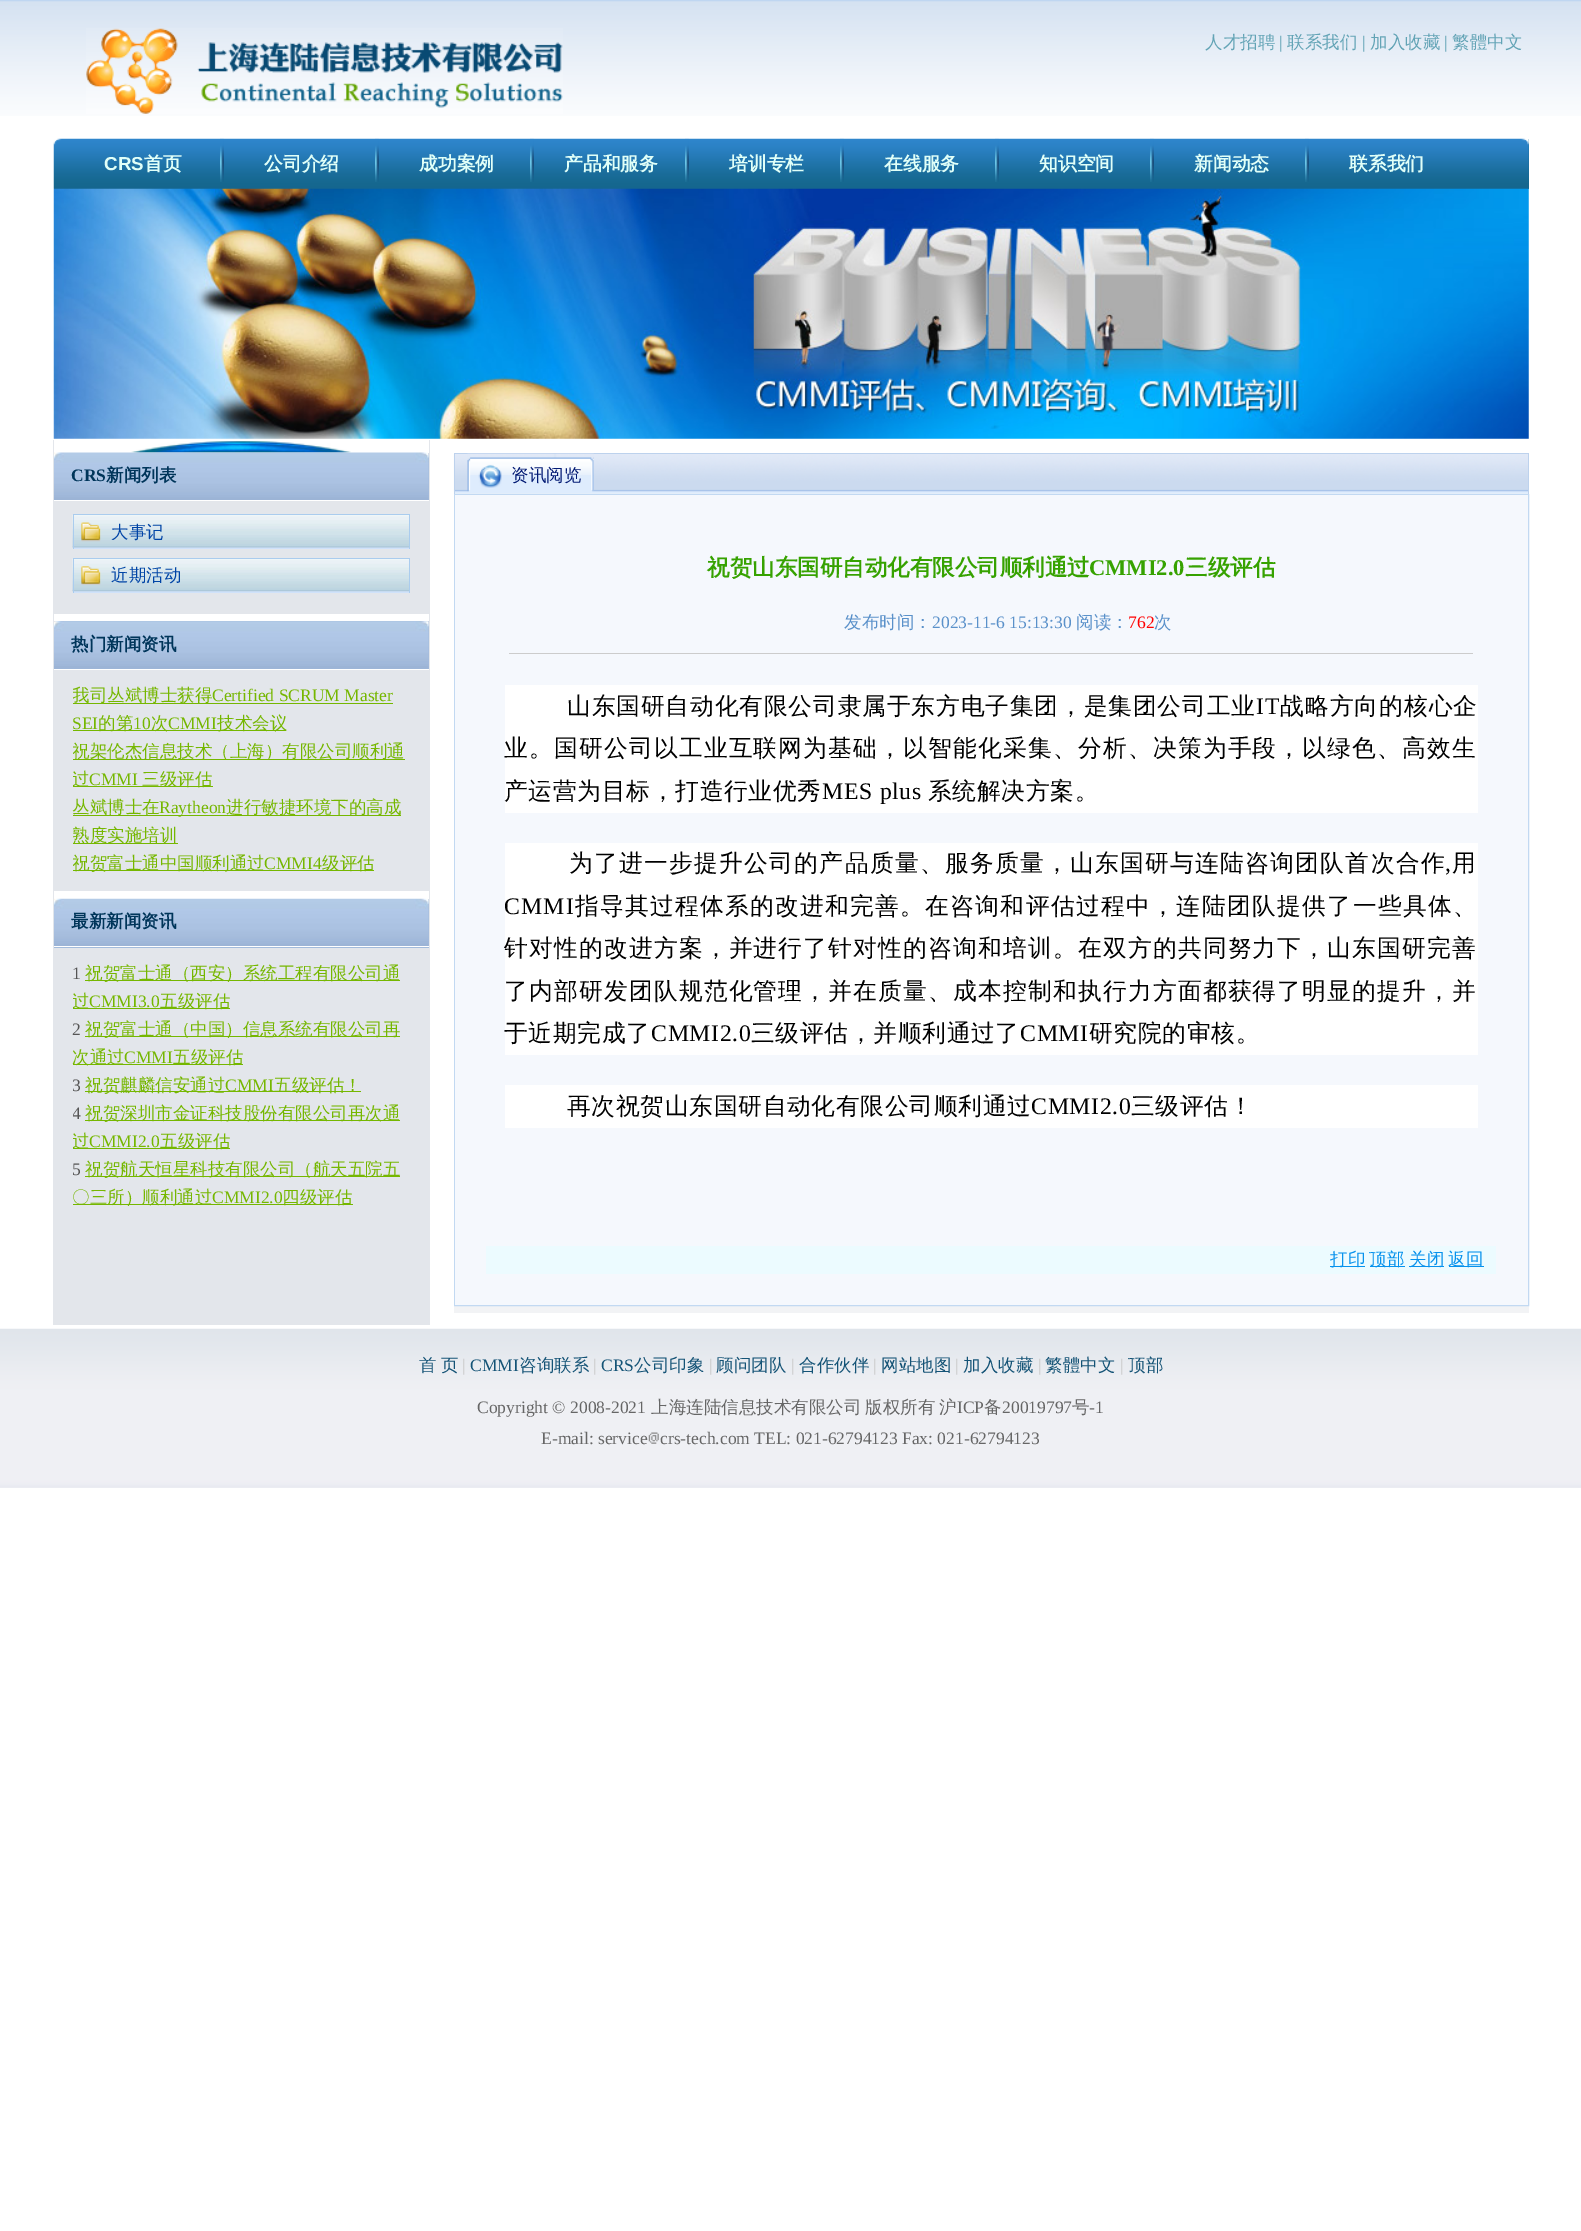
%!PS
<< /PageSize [1581 2231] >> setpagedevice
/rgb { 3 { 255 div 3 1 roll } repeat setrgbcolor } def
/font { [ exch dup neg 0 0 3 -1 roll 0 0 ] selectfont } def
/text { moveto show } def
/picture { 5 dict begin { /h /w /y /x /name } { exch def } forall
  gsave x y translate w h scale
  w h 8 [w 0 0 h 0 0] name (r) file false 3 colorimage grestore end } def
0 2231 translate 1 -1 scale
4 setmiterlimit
255 255 255 rgb
0 0 1581 2231 rectfill
(img_01.rgb) 0 0 1581 116 picture
(img_02.rgb) 86 28 477 86 picture
23 105 147 rgb
54 139 1475 50 rectfill
(img_03.rgb) 53 138 1476 51 picture
(img_04.rgb) 220 138 4 44 picture
(img_04.rgb) 375 138 4 44 picture
(img_04.rgb) 530 138 4 44 picture
(img_04.rgb) 685 138 4 44 picture
(img_04.rgb) 840 138 4 44 picture
(img_04.rgb) 995 138 4 44 picture
(img_04.rgb) 1150 138 4 44 picture
(img_04.rgb) 1305 138 4 44 picture
(img_05.rgb) 53 188 1476 251 picture
227 230 235 rgb
53 440 377 885 rectfill
255 255 255 rgb
54 440 375 459 rectfill
(img_06.rgb) 131 441 220 12 picture
163 187 219 rgb
428 453 1 47 rectfill
(img_07.rgb) 53 452 376 48 picture
227 230 235 rgb
54 501 375 113 rectfill
208 226 250 rgb
74 547 335 2 rectfill
(img_08.rgb) 72 515 337 33 picture
170 204 238 rgb
73 514 337 1 rectfill
409 514 1 35 rectfill
73 514 1 35 rectfill
(img_09.rgb) 81 522 20 20 picture
208 226 250 rgb
74 591 335 2 rectfill
(img_10.rgb) 72 558 337 34 picture
170 204 238 rgb
73 558 337 1 rectfill
409 558 1 35 rectfill
73 558 1 35 rectfill
(img_11.rgb) 81 566 20 19 picture
163 187 219 rgb
54 621 375 48 rectfill
(img_12.rgb) 53 621 376 48 picture
227 230 235 rgb
54 670 375 221 rectfill
117 183 0 rgb
73 703 320 1 rectfill
73 730 213 1 rectfill
73 759 332 1 rectfill
73 786 140 1 rectfill
73 815 328 1 rectfill
73 843 105 1 rectfill
73 870 301 1 rectfill
163 187 219 rgb
54 899 375 49 rectfill
(img_13.rgb) 53 898 376 48 picture
255 255 255 rgb
54 946 375 1 rectfill
117 183 0 rgb
85 980 315 1 rectfill
73 1008 157 1 rectfill
85 1036 315 1 rectfill
73 1064 170 1 rectfill
85 1091 276 1 rectfill
85 1120 315 1 rectfill
73 1148 157 1 rectfill
85 1176 315 1 rectfill
73 1204 280 1 rectfill
242 243 245 rgb
454 493 1075 820 rectfill
(img_14.rgb) 453 454 1075 40 picture
189 210 237 rgb
454 453 1075 1 rectfill
1528 453 1 41 rectfill
454 453 1 41 rectfill
(img_15.rgb) 467 453 127 39 picture
(img_16.rgb) 590 457 4 35 picture
194 217 242 rgb
454.5 494.5 1074 811 rectstroke
245 248 253 rgb
455 495 1073 810 rectfill
204 204 204 rgb
509 653 964 1 rectfill
255 255 255 rgb
505 685 973 128 rectfill
505 843 973 212 rectfill
505 1085 973 43 rectfill
236 251 255 rgb
486 1246 1010 28 rectfill
6 146 237 rgb
1330 1266 35 1 rectfill
1370 1266 35 1 rectfill
1409 1266 35 1 rectfill
1449 1266 35 1 rectfill
239 240 244 rgb
0 1487 1581 1 rectfill
(img_17.rgb) 0 1328 1581 160 picture
(img_18.rgb) 648 1432 11 12 picture
/WenQuanYiZenHei-Medium 17.5 font
99 164 182 rgb
(人才招聘) 1205 48 text
/LiberationSerif-Regular 17.5 font
(|) 1279 48 text
/WenQuanYiZenHei-Medium 17.5 font
(联系我们) 1287 48 text
/LiberationSerif-Regular 17.5 font
(|) 1362 48 text
/WenQuanYiZenHei-Medium 17.5 font
(加入收藏) 1370 48 text
/LiberationSerif-Regular 17.5 font
(|) 1444 48 text
/WenQuanYiZenHei-Medium 17.5 font
(繁體中文) 1452 48 text
/LiberationSans-Bold 18.75 font
224 255 248 rgb
(CRS) 104 170 text
/WenQuanYiZenHei-Bold 18.75 font
(首页) 144 170 text
(公司介绍) 264 170 text
(成功案例) 419 170 text
(产品和服务) 564 170 text
(培训专栏) 729 170 text
(在线服务) 884 170 text
(知识空间) 1039 170 text
(新闻动态) 1194 170 text
(联系我们) 1349 170 text
/LiberationSerif-Bold 17.5 font
0 53 90 rgb
(CRS) 71 481 text
/WenQuanYiZenHei-Bold 17.5 font
(新闻列表) 106 481 text
/WenQuanYiZenHei-Medium 17.5 font
0 68 166 rgb
(大事记) 111 538 text
(近期活动) 111 581 text
/WenQuanYiZenHei-Bold 17.5 font
0 53 90 rgb
(热门新闻资讯) 71 650 text
gsave
73 683 337 27 rectclip
/WenQuanYiZenHei-Medium 17.5 font
117 183 0 rgb
(我司丛斌博士获得) 72 701 text
grestore
/LiberationSerif-Regular 17.5 font
117 183 0 rgb
(Certified SCRUM Master) 212 701 text
(SEI) 72 729 text
/WenQuanYiZenHei-Medium 17.5 font
(的第) 98 729 text
/LiberationSerif-Regular 17.5 font
(10) 133 729 text
/WenQuanYiZenHei-Medium 17.5 font
(次) 151 729 text
/LiberationSerif-Regular 17.5 font
(CMMI) 168 729 text
/WenQuanYiZenHei-Medium 17.5 font
(技术会议) 217 729 text
gsave
73 739 337 56 rectclip
(祝架伦杰信息技术（上海）有限公司顺利通) 72 757 text
(过) 72 785 text
grestore
/LiberationSerif-Regular 17.5 font
(CMMI) 89 785 text
/WenQuanYiZenHei-Medium 17.5 font
(三级评估) 142 785 text
(丛斌博士在) 72 813 text
/LiberationSerif-Regular 17.5 font
(Raytheon) 159 813 text
/WenQuanYiZenHei-Medium 17.5 font
(进行敏捷环境下的高成) 226 813 text
gsave
73 795 337 55 rectclip
(熟度实施培训) 72 841 text
grestore
gsave
73 850 337 29 rectclip
(祝贺富士通中国顺利通过) 72 869 text
grestore
/LiberationSerif-Regular 17.5 font
(CMMI4) 264 869 text
/WenQuanYiZenHei-Medium 17.5 font
(级评估) 322 869 text
/WenQuanYiZenHei-Bold 17.5 font
0 53 90 rgb
(最新新闻资讯) 71 927 text
/LiberationSerif-Regular 17.5 font
85 85 85 rgb
(1) 72 979 text
/WenQuanYiZenHei-Medium 17.5 font
117 183 0 rgb
(祝贺富士通（西安）系统工程有限公司通) 85 979 text
gsave
73 960 337 56 rectclip
(过) 72 1007 text
grestore
/LiberationSerif-Regular 17.5 font
(CMMI3.0) 89 1007 text
/WenQuanYiZenHei-Medium 17.5 font
(五级评估) 160 1007 text
/LiberationSerif-Regular 17.5 font
85 85 85 rgb
(2) 72 1035 text
/WenQuanYiZenHei-Medium 17.5 font
117 183 0 rgb
(祝贺富士通（中国）信息系统有限公司再) 85 1035 text
(次通过) 72 1063 text
/LiberationSerif-Regular 17.5 font
(CMMI) 124 1063 text
/WenQuanYiZenHei-Medium 17.5 font
(五级评估) 173 1063 text
gsave
73 1071 337 29 rectclip
/LiberationSerif-Regular 17.5 font
85 85 85 rgb
(3) 72 1091 text
grestore
(祝贺麒麟信安通过) 85 1091 text
/LiberationSerif-Regular 17.5 font
(CMMI) 225 1091 text
/WenQuanYiZenHei-Medium 17.5 font
(五级评估！) 274 1091 text
gsave
73 1100 337 56 rectclip
/LiberationSerif-Regular 17.5 font
85 85 85 rgb
(4) 72 1119 text
grestore
(祝贺深圳市金证科技股份有限公司再次通) 85 1119 text
gsave
73 1100 337 56 rectclip
(过) 72 1147 text
grestore
/LiberationSerif-Regular 17.5 font
(CMMI2.0) 89 1147 text
/WenQuanYiZenHei-Medium 17.5 font
(五级评估) 160 1147 text
/LiberationSerif-Regular 17.5 font
85 85 85 rgb
(5) 72 1175 text
/WenQuanYiZenHei-Medium 17.5 font
117 183 0 rgb
(祝贺航天恒星科技有限公司（航天五院五) 85 1175 text
(〇三所）顺利通过) 72 1203 text
/LiberationSerif-Regular 17.5 font
(CMMI2.0) 212 1203 text
/WenQuanYiZenHei-Medium 17.5 font
(四级评估) 282 1203 text
2 26 116 rgb
(资讯阅览) 511 481 text
/WenQuanYiZenHei-Bold 22.5 font
54 162 0 rgb
(祝贺山东国研自动化有限公司顺利通过) 707 575 text
/LiberationSerif-Bold 22.5 font
(CMMI2.0) 1089 575 text
/WenQuanYiZenHei-Bold 22.5 font
(三级评估) 1185 575 text
/WenQuanYiZenHei-Medium 17.5 font
90 145 202 rgb
(发布时间：) 844 628 text
/LiberationSerif-Regular 17.5 font
(2023-11-6 15:13:30) 932 628 text
/WenQuanYiZenHei-Medium 17.5 font
(阅读：) 1076 628 text
/LiberationSerif-Regular 17.5 font
255 0 0 rgb
(762) 1128 628 text
/WenQuanYiZenHei-Medium 17.5 font
90 145 202 rgb
(次) 1154 628 text
/WenQuanYiZenHei-Medium 23.75 font
0 0 0 rgb
567 714 moveto 0.85 0 (山东国研自动化有限公司隶属于东方电子集团，是集团公司工业) ashow
/LiberationSerif-Regular 23.75 font
1256 714 moveto 0.7 0 (IT) ashow
/WenQuanYiZenHei-Medium 23.75 font
1280 714 moveto 1 0 (战略方向的核心企) ashow
504 756 moveto 1.2 0 (业。国研公司以工业互联网为基础，以智能化采集、分析、决策为手段，以绿色、高效生) ashow
504 799 moveto 0.7 0 (产运营为目标，打造行业优秀) ashow
/LiberationSerif-Regular 23.75 font
822 799 moveto 0.7 0 (MES plus) ashow
/WenQuanYiZenHei-Medium 23.75 font
928 799 moveto 0.7 0 (系统解决方案。) ashow
569 871 moveto 1.3 0 (为了进一步提升公司的产品质量、服务质量，山东国研与连陆咨询团队首次合作) ashow
/LiberationSerif-Regular 23.75 font
1445 871 moveto 0.7 0 (,) ashow
/WenQuanYiZenHei-Medium 23.75 font
1452 871 moveto 0.7 0 (用) ashow
/LiberationSerif-Regular 23.75 font
504 914 moveto 1.25 0 (CMMI) ashow
/WenQuanYiZenHei-Medium 23.75 font
575 914 moveto 1.25 0 (指导其过程体系的改进和完善。) ashow
925 914 moveto 1.4 0 (在咨询和评估过程中，连陆团队提供了一些具体、) ashow
504 956 moveto 1.2 0 (针对性的改进方案，并进行了针对性的咨询和培训。在双方的共同努力下，山东国研完善) ashow
504 999 moveto 1.2 0 (了内部研发团队规范化管理，并在质量、成本控制和执行力方面都获得了明显的提升，并) ashow
504 1041 moveto 0.7 0 (于近期完成了) ashow
/LiberationSerif-Regular 23.75 font
651 1041 moveto 0.7 0 (CMMI2.0) ashow
/WenQuanYiZenHei-Medium 23.75 font
751 1041 moveto 0.7 0 (三级评估，并顺利通过了) ashow
/LiberationSerif-Regular 23.75 font
1020 1041 moveto 0.7 0 (CMMI) ashow
/WenQuanYiZenHei-Medium 23.75 font
1089 1041 moveto 0.7 0 (研究院的审核。) ashow
567 1114 moveto 0.7 0 (再次祝贺山东国研自动化有限公司顺利通过) ashow
/LiberationSerif-Regular 23.75 font
1031 1114 moveto 0.7 0 (CMMI2.0) ashow
/WenQuanYiZenHei-Medium 23.75 font
1131 1114 moveto 0.7 0 (三级评估！) ashow
/WenQuanYiZenHei-Medium 17.5 font
6 146 237 rgb
(打印) 1330 1265 text
(顶部) 1369 1265 text
(关闭) 1409 1265 text
(返回) 1448 1265 text
20 83 118 rgb
419 1371 moveto -1 0 32 (首 页) widthshow
/LiberationSerif-Regular 17.5 font
203 203 203 rgb
(|) 462 1371 text
20 83 118 rgb
(CMMI) 470 1371 text
/WenQuanYiZenHei-Medium 17.5 font
(咨询联系) 519 1371 text
/LiberationSerif-Regular 17.5 font
203 203 203 rgb
(|) 593 1371 text
20 83 118 rgb
(CRS) 601 1371 text
/WenQuanYiZenHei-Medium 17.5 font
(公司印象) 634 1371 text
/LiberationSerif-Regular 17.5 font
203 203 203 rgb
(|) 709 1371 text
/WenQuanYiZenHei-Medium 17.5 font
20 83 118 rgb
(顾问团队) 716 1371 text
/LiberationSerif-Regular 17.5 font
203 203 203 rgb
(|) 791 1371 text
/WenQuanYiZenHei-Medium 17.5 font
20 83 118 rgb
(合作伙伴) 799 1371 text
/LiberationSerif-Regular 17.5 font
203 203 203 rgb
(|) 873 1371 text
/WenQuanYiZenHei-Medium 17.5 font
20 83 118 rgb
(网站地图) 881 1371 text
/LiberationSerif-Regular 17.5 font
203 203 203 rgb
(|) 955 1371 text
/WenQuanYiZenHei-Medium 17.5 font
20 83 118 rgb
(加入收藏) 963 1371 text
/LiberationSerif-Regular 17.5 font
203 203 203 rgb
(|) 1038 1371 text
/WenQuanYiZenHei-Medium 17.5 font
20 83 118 rgb
(繁體中文) 1045 1371 text
/LiberationSerif-Regular 17.5 font
203 203 203 rgb
(|) 1120 1371 text
/WenQuanYiZenHei-Medium 17.5 font
20 83 118 rgb
(顶部) 1128 1371 text
/LiberationSerif-Regular 17.5 font
102 102 102 rgb
(Copyright © 2008-2021) 477 1413 text
/WenQuanYiZenHei-Medium 17.5 font
(上海连陆信息技术有限公司) 651 1413 text
(版权所有) 865 1413 text
(沪) 939 1413 text
/LiberationSerif-Regular 17.5 font
(ICP) 957 1413 text
/WenQuanYiZenHei-Medium 17.5 font
(备) 984 1413 text
/LiberationSerif-Regular 17.5 font
(20019797) 1002 1413 text
/WenQuanYiZenHei-Medium 17.5 font
(号) 1072 1413 text
/LiberationSerif-Regular 17.5 font
(-1) 1089 1413 text
(E-mail: service) 541 1444 text
(crs-tech.com TEL: 021-62794123 Fax: 021-62794123) 660 1444 text
showpage
